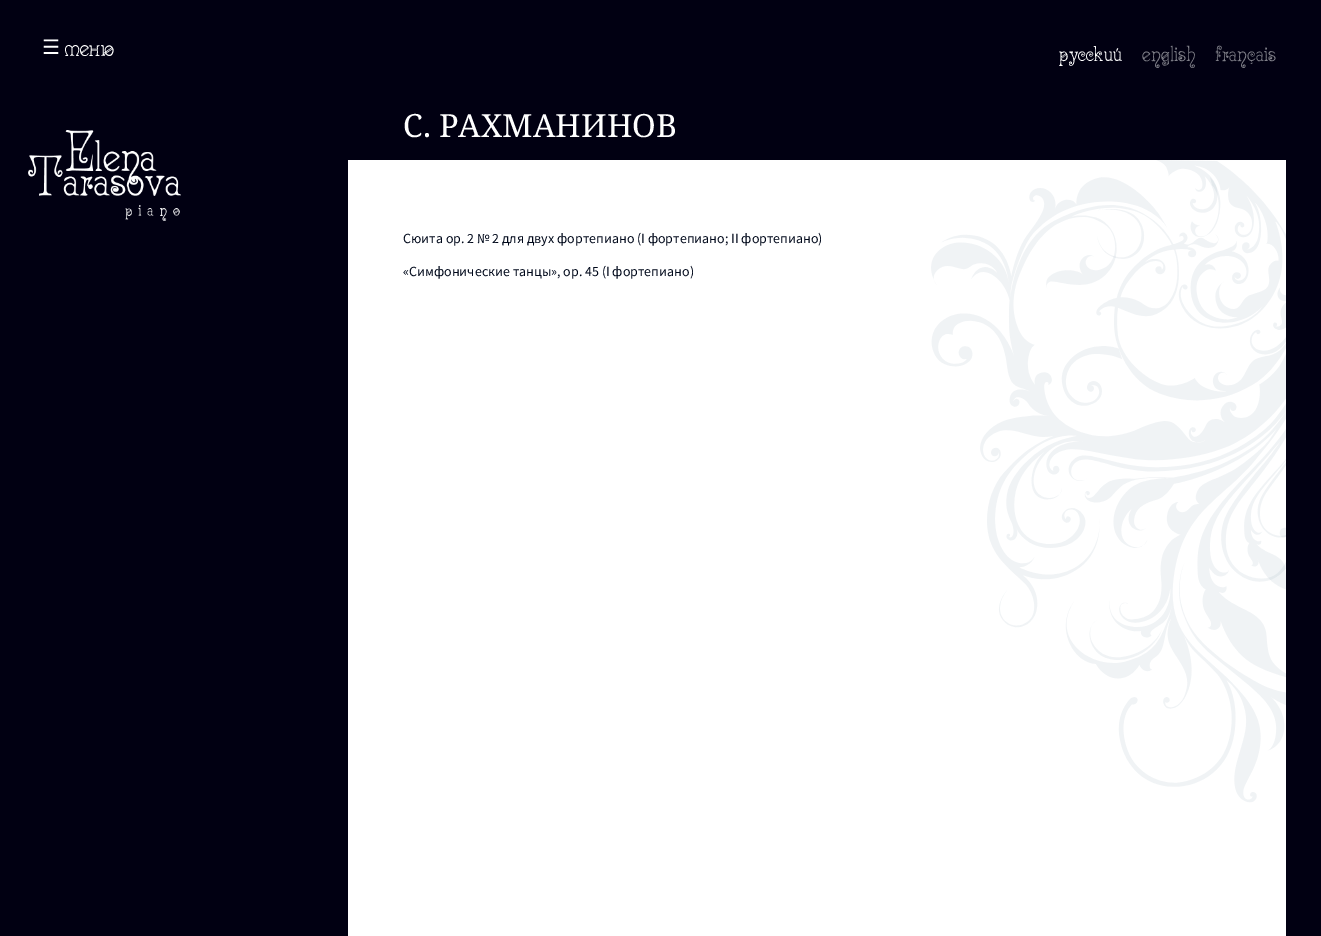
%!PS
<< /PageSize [1321 936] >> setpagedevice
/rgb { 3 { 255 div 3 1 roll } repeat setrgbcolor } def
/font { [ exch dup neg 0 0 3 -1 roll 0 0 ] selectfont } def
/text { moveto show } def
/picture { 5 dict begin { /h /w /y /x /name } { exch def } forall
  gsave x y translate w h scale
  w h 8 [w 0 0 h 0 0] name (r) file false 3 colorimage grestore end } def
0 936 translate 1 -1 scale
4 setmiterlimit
1 0 18 rgb
0 0 1321 936 rectfill
(img_01.rgb) 28 130 153 91 picture
255 255 255 rgb
348 160 938 776 rectfill
(img_02.rgb) 931 160 355 643 picture
/DejaVuSans-Regular 20 font
(☰) 42 54 text
/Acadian-Regular 32 font
(меню) 65 56 text
/Acadian-Regular 28 font
(русский) 1059 61 text
128 128 137 rgb
(english) 1142 61 text
(français) 1215 61 text
/NotoSerif-Regular 32 font
255 255 255 rgb
(С. РАХМАНИНОВ) 403 137 text
/SourceSansPro-Regular 14 font
0 8 26 rgb
(Сюита op. 2 № 2 для двух фортепиано \(I фортепиано; II фортепиано\)) 403 243 text
(«Симфонические танцы», op. 45 \(I фортепиано\)) 403 276 text
showpage
